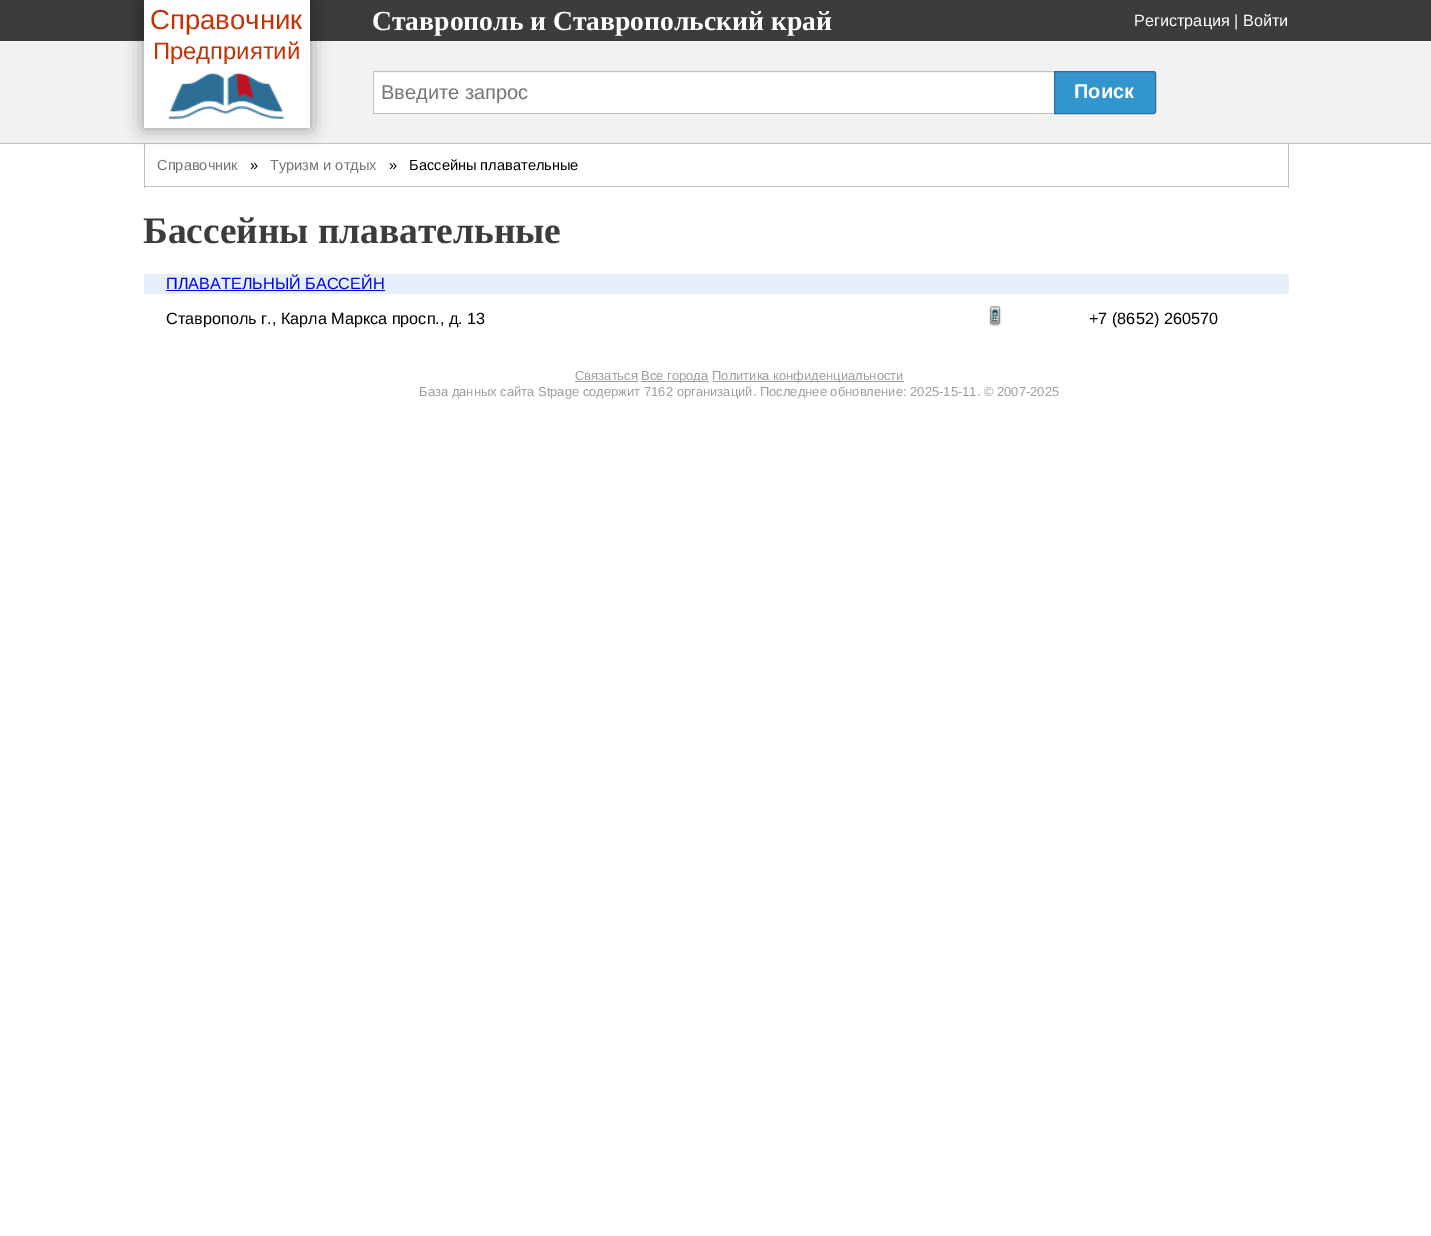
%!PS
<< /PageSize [1431 1236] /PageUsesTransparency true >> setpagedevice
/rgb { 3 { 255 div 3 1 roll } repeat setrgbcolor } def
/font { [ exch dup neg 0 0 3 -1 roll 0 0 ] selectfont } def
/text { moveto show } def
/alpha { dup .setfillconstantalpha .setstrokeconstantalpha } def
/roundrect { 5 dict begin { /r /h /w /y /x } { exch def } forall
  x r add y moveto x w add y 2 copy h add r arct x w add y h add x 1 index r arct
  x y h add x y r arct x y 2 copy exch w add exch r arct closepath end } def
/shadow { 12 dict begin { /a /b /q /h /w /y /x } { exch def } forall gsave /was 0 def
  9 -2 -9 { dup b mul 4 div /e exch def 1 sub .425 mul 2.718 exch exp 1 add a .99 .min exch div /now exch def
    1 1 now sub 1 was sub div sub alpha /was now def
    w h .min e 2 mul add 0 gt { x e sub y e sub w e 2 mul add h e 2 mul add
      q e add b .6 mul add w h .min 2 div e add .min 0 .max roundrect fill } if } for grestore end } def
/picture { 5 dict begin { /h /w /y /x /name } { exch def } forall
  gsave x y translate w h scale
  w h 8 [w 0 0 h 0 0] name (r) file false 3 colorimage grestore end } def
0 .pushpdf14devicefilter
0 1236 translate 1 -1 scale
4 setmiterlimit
255 255 255 rgb
0 0 1431 1236 rectfill
60 60 60 rgb
0 0 1431 41 rectfill
242 242 242 rgb
0 41 1431 102 rectfill
192 192 192 rgb
0 143 1431 1 rectfill
1288 144 1 44 rectfill
144 186 1145 1 rectfill
144 144 1 44 rectfill
0 0 0 rgb
144 0 166 128 0 9.5 0.4 shadow
255 255 255 rgb
144 0 166 128 rectfill
(img_01.rgb) 168 73 116 46 picture
374 73 680 40 rectfill
192 192 192 rgb
373 71 681 1 rectfill
373 113 681 1 rectfill
373 71 1 43 rectfill
51 149 205 rgb
1054.5 71.5 moveto 99 0 rlineto 1 0 2 1 2 2 rcurveto 0 38 rlineto 0 1 -1 2 -2 2 rcurveto -99 0 rlineto closepath gsave fill grestore
44 110 150 rgb
stroke
230 240 251 rgb
144 274 1145 20 rectfill
0 0 238 rgb
166 290 219 1 rectfill
(img_02.rgb) 989 306 13 21 picture
157 157 157 rgb
575 381 63 1 rectfill
641 381 68 1 rectfill
713 381 191 1 rectfill
/LiberationSans-Regular 27.5 font
193 50 4 rgb
(Справочник) 150 29 text
/LiberationSans-Regular 23.75 font
(Предприятий) 153 59 text
/LiberationSerif-Bold 27.6 font
255 255 255 rgb
(Ставрополь и Ставропольский край) 372 30 text
/LiberationSans-Regular 16.25 font
(Регистрация | Войти) 1134 26 text
/LiberationSans-Regular 20 font
117 117 117 rgb
(Введите запрос) 381 99 text
/LiberationSans-Bold 20 font
255 255 255 rgb
(Поиск) 1074 98 text
/LiberationSans-Regular 14.6 font
117 117 117 rgb
(Справочник) 157 170 text
0 0 0 rgb
(») 250 170 text
117 117 117 rgb
(Туризм и отдых) 270 170 text
0 0 0 rgb
(»   Бассейны плавательные) 389 170 text
/LiberationSerif-Bold 37.4 font
60 60 60 rgb
(Бассейны плавательные) 143 243 text
/LiberationSans-Regular 16.25 font
0 0 238 rgb
(ПЛАВАТЕЛЬНЫЙ БАССЕЙН) 166 289 text
0 0 0 rgb
(Ставрополь г., Карла Маркса просп., д. 13) 166 324 text
(+7 \(8652\) 260570) 1089 324 text
/LiberationSans-Regular 13 font
157 157 157 rgb
(Связаться) 575 380 text
(Все города) 641 380 text
(Политика конфиденциальности) 712 380 text
(База данных сайта Stpage содержит 7162 организаций. Последнее обновление: 2025-15-11. © 2007-2025) 419 396 text
.poppdf14devicefilter showpage
